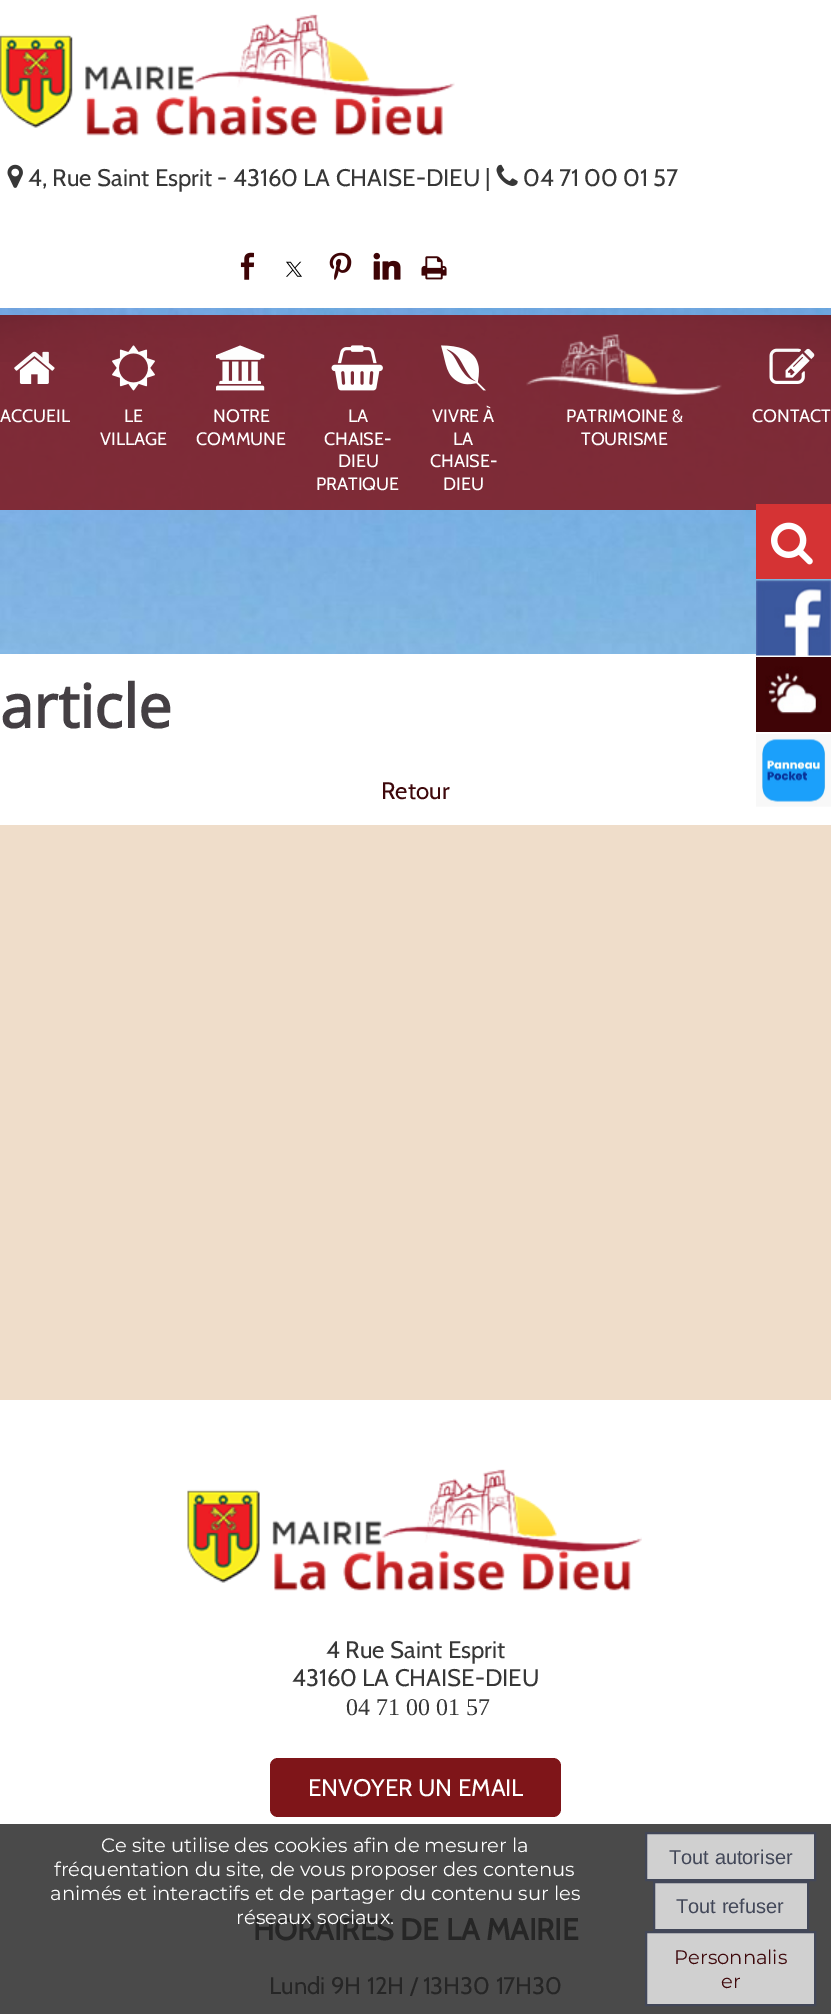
%!PS
<< /PageSize [831 2014] /PageUsesTransparency true >> setpagedevice
/rgb { 3 { 255 div 3 1 roll } repeat setrgbcolor } def
/font { [ exch dup neg 0 0 3 -1 roll 0 0 ] selectfont } def
/text { moveto show } def
/alpha { dup .setfillconstantalpha .setstrokeconstantalpha } def
/roundrect { 5 dict begin { /r /h /w /y /x } { exch def } forall
  x r add y moveto x w add y 2 copy h add r arct x w add y h add x 1 index r arct
  x y h add x y r arct x y 2 copy exch w add exch r arct closepath end } def
/picture { 5 dict begin { /h /w /y /x /name } { exch def } forall
  gsave x y translate w h scale
  w h 8 [w 0 0 h 0 0] name (r) file false 3 colorimage grestore end } def
0 .pushpdf14devicefilter
0 2014 translate 1 -1 scale
4 setmiterlimit
255 255 255 rgb
0 0 831 2014 rectfill
74 74 74 rgb
0 1824 831 190 rectfill
(img_01.rgb) 0 14 455 122 picture
(img_02.rgb) 7 164 16 24 picture
(img_03.rgb) 496 164 22 22 picture
(img_04.rgb) 240 252 15 28 picture
(img_05.rgb) 286 261 16 16 picture
(img_06.rgb) 329 252 23 28 picture
(img_07.rgb) 373 252 28 28 picture
(img_08.rgb) 421 256 26 24 picture
(img_17.rgb) 0 308 831 346 picture
0.85 alpha
127 20 25 rgb
0 315 831 195 rectfill
1 alpha
(img_10.rgb) 14 351 41 33 picture
(img_11.rgb) 112 345 43 46 picture
(img_12.rgb) 216 345 49 46 picture
(img_13.rgb) 331 345 52 46 picture
(img_14.rgb) 441 345 45 46 picture
(img_15.rgb) 526 334 196 61 picture
(img_16.rgb) 769 348 46 36 picture
(img_09.rgb) 0 315 831 47 picture
213 51 52 rgb
756 504 75 75 rectfill
(img_18.rgb) 771 522 42 43 picture
(img_19.rgb) 756 580 75 76 picture
(img_20.rgb) 756 657 75 75 picture
(img_21.rgb) 756 734 75 73 picture
239 221 202 rgb
0 825 831 575 rectfill
(img_22.rgb) 187 1469 455 122 picture
127 21 25 rgb
270 1758 291 59 8 roundrect fill
208 208 208 rgb
646 1833 moveto 169 0 rlineto 0 47 rlineto -169 0 rlineto closepath gsave fill grestore
66 71 88 rgb
2 setlinewidth
stroke
208 208 208 rgb
654 1882 moveto 154 0 rlineto 0 48 rlineto -154 0 rlineto closepath gsave fill grestore
66 71 88 rgb
stroke
208 208 208 rgb
646 1932 moveto 169 0 rlineto 0 73 rlineto -169 0 rlineto closepath gsave fill grestore
66 71 88 rgb
stroke
/Cabin-Regular 24 font
55 55 55 rgb
(4, Rue Saint Esprit - 43160 LA CHAISE-DIEU |) 28 186 text
(04 71 00 01 57) 523 186 text
/Cabin-Regular 18 font
255 255 255 rgb
(ACCUEIL) 0 422 text
(LE) 124 422 text
(VILLAGE) 100 445 text
(NOTRE) 213 422 text
(COMMUNE) 196 445 text
(LA) 348 422 text
(CHAISE-) 324 445 text
(DIEU) 338 467 text
(PRATIQUE) 316 490 text
(VIVRE À) 432 422 text
(LA) 453 445 text
(CHAISE-) 430 467 text
(DIEU) 443 490 text
(PATRIMOINE &) 566 422 text
(TOURISME) 581 445 text
(CONTACT) 752 422 text
/OpenSans-Bold 60 font
68 63 67 rgb
(article) 0 728 text
/Cabin-Regular 24 font
62 8 11 rgb
(Retour) 381 799 text
55 55 55 rgb
(4 Rue Saint Esprit) 326 1658 text
(43160 LA CHAISE-DIEU) 292 1686 text
/LiberationSerif-Regular 24 font
(04 71 00 01 57) 346 1715 text
/Cabin-Regular 24 font
255 255 255 rgb
(ENVOYER UN EMAIL) 308 1796 text
/Cabin-Bold 30 font
38 38 38 rgb
(HORAIRES DE LA MAIRIE) 253 1940 text
/Cabin-Regular 24 font
(Lundi 9H 12H / 13H30 17H30) 269 1994 text
/Montserrat-Regular 19.5 font
255 255 255 rgb
(Ce site utilise des cookies afin de mesurer la) 101 1852 text
(fréquentation du site, de vous proposer des contenus) 54 1876 text
(animés et interactifs et de partager du contenu sur les) 50 1900 text
(réseaux sociaux.) 236 1924 text
/LiberationSans-Regular 20 font
66 71 88 rgb
(Tout autoriser) 669 1864 text
(Tout refuser) 676 1913 text
/Montserrat-Regular 19.5 font
62 8 11 rgb
(Personnalis) 674 1964 text
(er) 721 1988 text
.poppdf14devicefilter showpage
